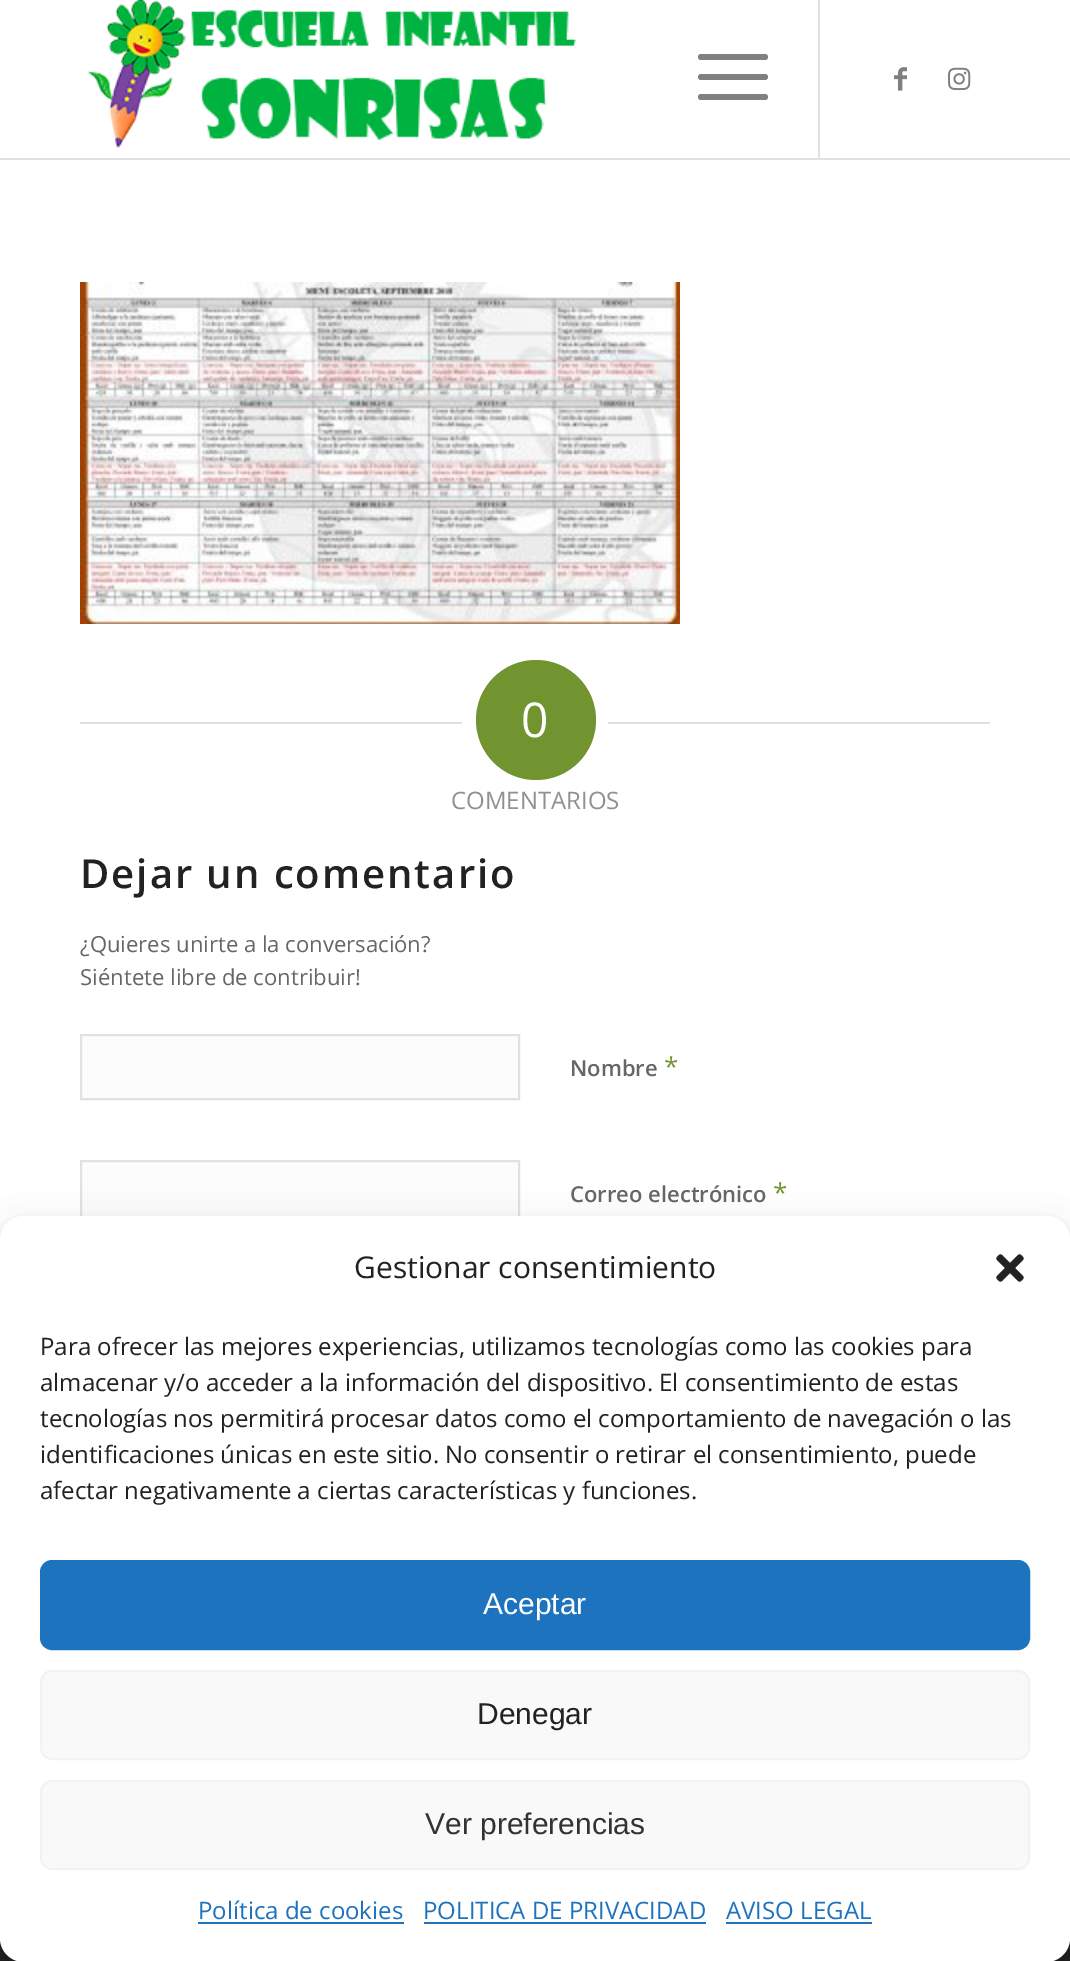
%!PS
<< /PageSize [1070 1961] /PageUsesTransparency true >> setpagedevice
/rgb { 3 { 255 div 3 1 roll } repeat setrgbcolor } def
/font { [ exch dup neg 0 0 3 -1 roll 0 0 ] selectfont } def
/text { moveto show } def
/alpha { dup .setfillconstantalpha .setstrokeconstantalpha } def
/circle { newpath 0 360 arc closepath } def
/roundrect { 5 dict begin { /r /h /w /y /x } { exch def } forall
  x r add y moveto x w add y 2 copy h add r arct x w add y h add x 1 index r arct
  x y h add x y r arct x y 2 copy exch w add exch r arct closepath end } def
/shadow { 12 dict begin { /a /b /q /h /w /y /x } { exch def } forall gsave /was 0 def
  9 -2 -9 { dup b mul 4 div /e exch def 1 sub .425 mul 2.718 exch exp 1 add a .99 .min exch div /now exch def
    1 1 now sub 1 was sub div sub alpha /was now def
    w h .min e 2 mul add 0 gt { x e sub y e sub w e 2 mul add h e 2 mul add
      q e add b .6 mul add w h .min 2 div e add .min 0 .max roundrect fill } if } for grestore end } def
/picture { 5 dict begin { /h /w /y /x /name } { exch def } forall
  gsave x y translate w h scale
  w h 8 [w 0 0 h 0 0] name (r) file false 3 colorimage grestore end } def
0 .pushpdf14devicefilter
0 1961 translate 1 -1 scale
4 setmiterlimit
255 255 255 rgb
0 0 1070 1961 rectfill
225 225 225 rgb
0 158 1070 2 rectfill
(img_01.rgb) 87 0 489 148 picture
818 0 2 158 rectfill
128 128 128 rgb
698 74 70 6 3 roundrect fill
698 54 70 6 3 roundrect fill
698 94 70 6 3 roundrect fill
(img_02.rgb) 894 67 13 24 picture
(img_03.rgb) 948 67 23 24 picture
(img_04.rgb) 80 282 600 342 picture
225 225 225 rgb
80 722 382 2 rectfill
113 148 48 rgb
536 720 60 circle fill
225 225 225 rgb
608 722 382 2 rectfill
252 252 252 rgb
81 1035 moveto 438 0 rlineto 0 64 rlineto -438 0 rlineto closepath gsave fill grestore
225 225 225 rgb
2 setlinewidth
stroke
252 252 252 rgb
82 1162 436 54 rectfill
225 225 225 rgb
81 1161 438 64 rectstroke
0.85 alpha
0 0 0 rgb
0 1938 1070 23 rectfill
1 alpha
0 1228 1070 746 24 6 0.23 shadow
0 1236 1070 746 24 20 0.19 shadow
255 255 255 rgb
0 1216 1070 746 24 roundrect fill
(img_05.rgb) 996 1254 28 28 picture
30 115 190 rgb
41 1561 988 88 11 roundrect gsave fill grestore
stroke
249 249 249 rgb
41 1671 988 88 11 roundrect gsave fill grestore
242 242 242 rgb
stroke
249 249 249 rgb
41 1781 988 88 11 roundrect gsave fill grestore
242 242 242 rgb
stroke
30 115 190 rgb
198 1922 206 2 rectfill
424 1922 282 2 rectfill
726 1922 146 2 rectfill
/OpenSans-Regular 48 font
255 255 255 rgb
(0) 521 737 text
/OpenSans-Regular 24 font
145 145 145 rgb
(COMENTARIOS) 451 809 text
/OpenSans-SemiBold 40 font
34 34 34 rgb
80 888 moveto 2 0 (Dejar un comentario) ashow
/OpenSans-Regular 22.1 font
102 102 102 rgb
(¿Quieres unirte a la conversación?) 80 952 text
(Siéntete libre de contribuir!) 80 985 text
/OpenSans-SemiBold 22 font
(Nombre) 570 1076 text
/OpenSans-Regular 26 font
113 148 48 rgb
(*) 664 1076 text
/OpenSans-SemiBold 22 font
102 102 102 rgb
(Correo electrónico) 570 1202 text
/OpenSans-Regular 26 font
113 148 48 rgb
(*) 773 1202 text
/OpenSans-Regular 30 font
34 34 34 rgb
(Gestionar consentimiento) 354 1278 text
/OpenSans-Regular 24 font
(Para ofrecer las mejores experiencias, utilizamos tecnologías como las cookies para) 40 1355 text
(almacenar y/o acceder a la información del dispositivo. El consentimiento de estas) 40 1391 text
(tecnologías nos permitirá procesar datos como el comportamiento de navegación o las) 40 1427 text
(identificaciones únicas en este sitio. No consentir o retirar el consentimiento, puede) 40 1463 text
(afectar negativamente a ciertas características y funciones.) 40 1499 text
/LiberationSans-Regular 30 font
255 255 255 rgb
(Aceptar) 483 1614 text
34 34 34 rgb
(Denegar) 477 1724 text
51 51 51 rgb
(Ver preferencias) 425 1834 text
/OpenSans-Regular 24 font
30 115 190 rgb
(Política de cookies) 198 1919 text
(POLITICA DE PRIVACIDAD) 423 1919 text
(AVISO LEGAL) 726 1919 text
.poppdf14devicefilter showpage
